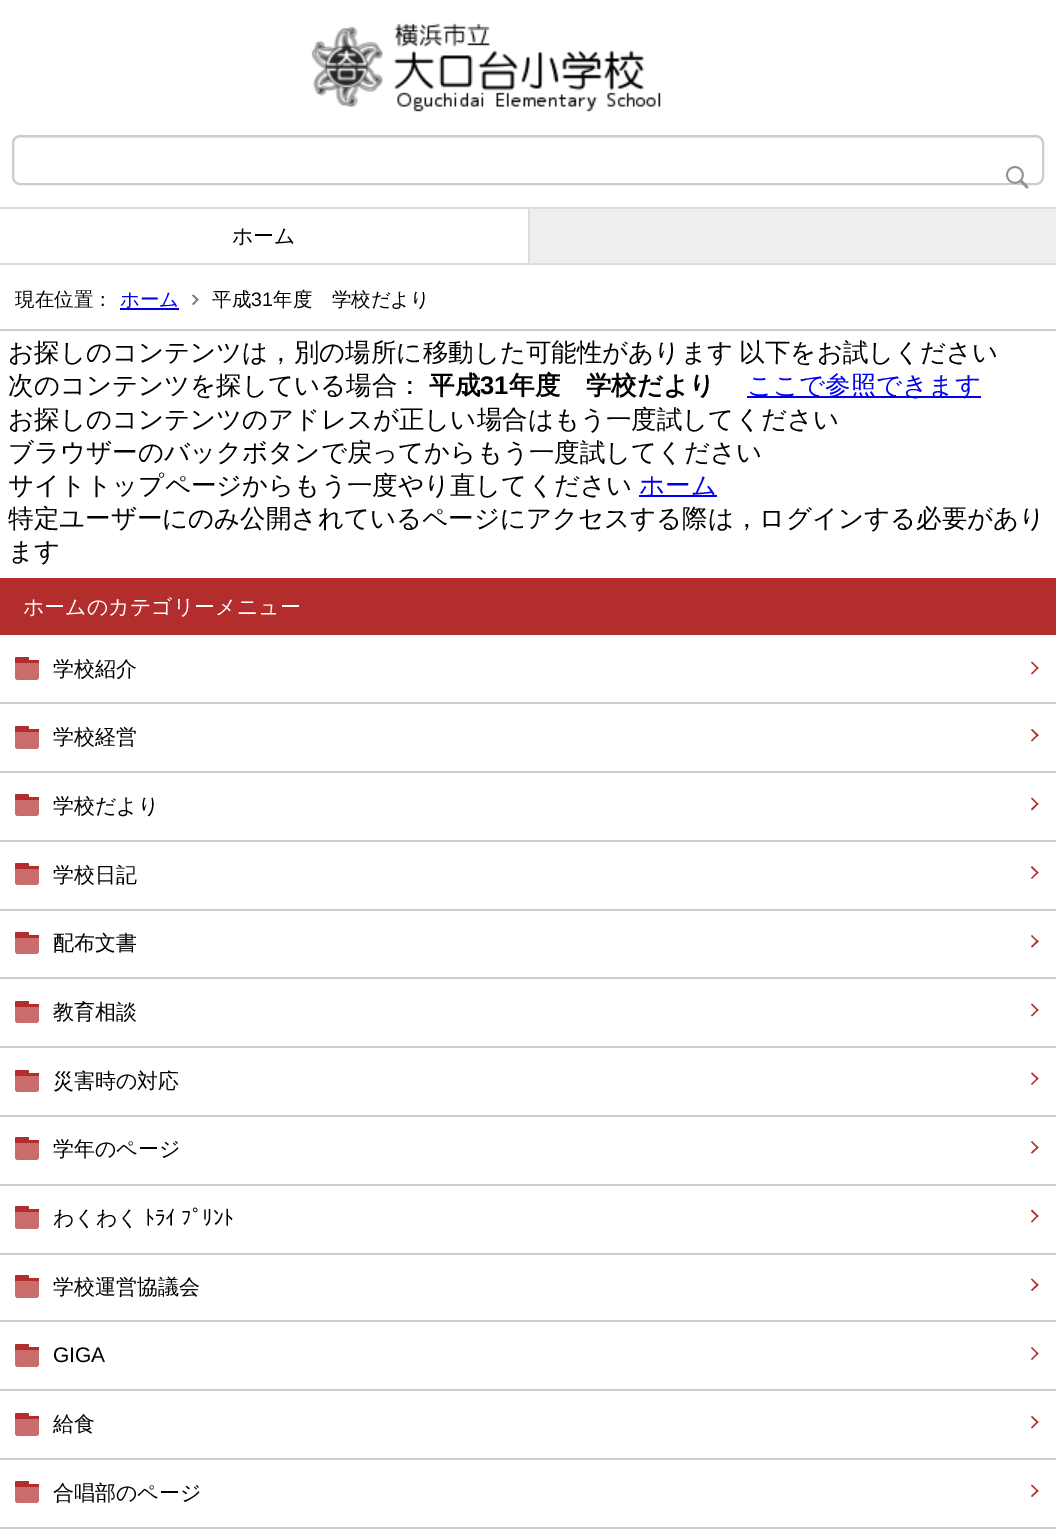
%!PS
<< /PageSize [1056 1533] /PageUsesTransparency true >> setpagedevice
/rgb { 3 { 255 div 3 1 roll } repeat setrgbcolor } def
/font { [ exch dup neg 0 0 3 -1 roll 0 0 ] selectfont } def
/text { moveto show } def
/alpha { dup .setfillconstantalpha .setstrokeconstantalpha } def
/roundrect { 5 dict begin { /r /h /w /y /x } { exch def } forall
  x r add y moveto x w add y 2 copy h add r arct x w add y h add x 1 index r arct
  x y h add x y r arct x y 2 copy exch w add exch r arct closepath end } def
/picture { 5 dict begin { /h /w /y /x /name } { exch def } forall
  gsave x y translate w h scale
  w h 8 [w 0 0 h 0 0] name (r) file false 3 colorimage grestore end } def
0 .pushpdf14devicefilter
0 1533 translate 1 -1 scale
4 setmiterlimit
255 255 255 rgb
0 0 1056 1533 rectfill
(img_01.rgb) 311 23 350 89 picture
236 236 236 rgb
20 138 moveto 1016 0 rlineto 4 0 6 3 6 6 rcurveto 0 34 rlineto -1 3 rlineto 1 -1 2 -2 2 -4 rcurveto 0 -34 rlineto 0 -3 -3 -6 -6 -6 rcurveto -1017 0 rlineto -3 0 -6 3 -6 6 rcurveto 0 1 rlineto 0 -3 2 -6 6 -6 rcurveto closepath fill
204 204 204 rgb
2 setlinewidth
13 136 1030 48 7 roundrect stroke
(img_02.rgb) 1006 166 23 23 picture
238 238 238 rgb
530 209 526 54 rectfill
221 221 221 rgb
0 207 1056 2 rectfill
0 263 1056 2 rectfill
528 209 2 55 rectfill
204 204 204 rgb
0 329 1056 2 rectfill
0 0 238 rgb
120 308 59 2 rectfill
119 119 119 rgb
193.5 294.5 moveto 5 5 rlineto -1 1.5 rlineto -5.5 -5.5 rlineto closepath fill
197.5 298.5 moveto 1 1 rlineto -5 5.5 rlineto -1.5 -1 rlineto closepath fill
0 0 238 rgb
747 396 234 2 rectfill
639 495 78 2 rectfill
179 45 45 rgb
0 578 1056 57 rectfill
16.5 657 moveto 11 0 rlineto 1 0 1.5 0.5 1.5 1.5 rcurveto 0 3.5 rlineto -14 0 rlineto 0 -3.5 rlineto 0 -1 0.5 -1.5 1.5 -1.5 rcurveto closepath fill
0.7 alpha
15 660 moveto 22.5 0 rlineto 1 0 1.5 0.5 1.5 1.5 rcurveto 0 15.5 rlineto 0 1.5 -1.5 3 -3 3 rcurveto -18 0 rlineto -1.5 0 -3 -1.5 -3 -3 rcurveto closepath fill
1 alpha
15 660 24 3 rectfill
1032 661.5 moveto 6.5 6.5 rlineto -1 1 rlineto -6.5 -6.5 rlineto closepath fill
1037.5 667 moveto 1 1 rlineto -6.5 6.5 rlineto -1 -1 rlineto closepath fill
204 204 204 rgb
0 702 1056 2 rectfill
179 45 45 rgb
16.5 726 moveto 11 0 rlineto 1 0 1.5 0.5 1.5 1.5 rcurveto 0 3.5 rlineto -14 0 rlineto 0 -3.5 rlineto 0 -1 0.5 -1.5 1.5 -1.5 rcurveto closepath fill
0.7 alpha
15 729 moveto 22.5 0 rlineto 1 0 1.5 0.5 1.5 1.5 rcurveto 0 15.5 rlineto 0 1.5 -1.5 3 -3 3 rcurveto -18 0 rlineto -1.5 0 -3 -1.5 -3 -3 rcurveto closepath fill
1 alpha
15 729 24 3 rectfill
1032 729 moveto 6.5 6 rlineto -1 1.5 rlineto -6.5 -6.5 rlineto closepath fill
1037.5 734 moveto 1 1 rlineto -6.5 6.5 rlineto -1 -1 rlineto closepath fill
204 204 204 rgb
0 771 1056 2 rectfill
179 45 45 rgb
16.5 794 moveto 11 0 rlineto 1 0 1.5 0.5 1.5 1.5 rcurveto 0 3.5 rlineto -14 0 rlineto 0 -3.5 rlineto 0 -1 0.5 -1.5 1.5 -1.5 rcurveto closepath fill
0.7 alpha
15 797 moveto 22.5 0 rlineto 1 0 1.5 0.5 1.5 1.5 rcurveto 0 14.5 rlineto 0 1.5 -1.5 3 -3 3 rcurveto -18 0 rlineto -1.5 0 -3 -1.5 -3 -3 rcurveto closepath fill
1 alpha
15 797 24 3 rectfill
1032 797.5 moveto 6.5 6.5 rlineto -1 1 rlineto -6.5 -6.5 rlineto closepath fill
1037.5 803 moveto 1 1 rlineto -6.5 6.5 rlineto -1 -1.5 rlineto closepath fill
204 204 204 rgb
0 840 1056 2 rectfill
179 45 45 rgb
16.5 863 moveto 11 0 rlineto 1 0 1.5 0.5 1.5 1.5 rcurveto 0 3.5 rlineto -14 0 rlineto 0 -3.5 rlineto 0 -1 0.5 -1.5 1.5 -1.5 rcurveto closepath fill
0.7 alpha
15 866 moveto 22.5 0 rlineto 1 0 1.5 0.5 1.5 1.5 rcurveto 0 14.5 rlineto 0 1.5 -1.5 3 -3 3 rcurveto -18 0 rlineto -1.5 0 -3 -1.5 -3 -3 rcurveto closepath fill
1 alpha
15 866 24 3 rectfill
1032 866 moveto 6.5 6.5 rlineto -1 1 rlineto -6.5 -6 rlineto closepath fill
1037.5 871.5 moveto 1 1 rlineto -6.5 6.5 rlineto -1 -1 rlineto closepath fill
204 204 204 rgb
0 909 1056 2 rectfill
179 45 45 rgb
16.5 932 moveto 11 0 rlineto 1 0 1.5 0.5 1.5 1.5 rcurveto 0 3.5 rlineto -14 0 rlineto 0 -3.5 rlineto 0 -1 0.5 -1.5 1.5 -1.5 rcurveto closepath fill
0.7 alpha
15 935 moveto 22.5 0 rlineto 1 0 1.5 0.5 1.5 1.5 rcurveto 0 14.5 rlineto 0 1.5 -1.5 3 -3 3 rcurveto -18 0 rlineto -1.5 0 -3 -1.5 -3 -3 rcurveto closepath fill
1 alpha
15 935 24 3 rectfill
1032 935 moveto 6.5 6.5 rlineto -1 1 rlineto -6.5 -6.5 rlineto closepath fill
1037.5 940 moveto 1 1.5 rlineto -6.5 6 rlineto -1 -1 rlineto closepath fill
204 204 204 rgb
0 977 1056 2 rectfill
179 45 45 rgb
16.5 1001 moveto 11 0 rlineto 1 0 1.5 0.5 1.5 1.5 rcurveto 0 3.5 rlineto -14 0 rlineto 0 -3.5 rlineto 0 -1 0.5 -1.5 1.5 -1.5 rcurveto closepath fill
0.7 alpha
15 1004 moveto 22.5 0 rlineto 1 0 1.5 0.5 1.5 1.5 rcurveto 0 14.5 rlineto 0 1.5 -1.5 3 -3 3 rcurveto -18 0 rlineto -1.5 0 -3 -1.5 -3 -3 rcurveto closepath fill
1 alpha
15 1004 24 3 rectfill
1032 1003.5 moveto 6.5 6.5 rlineto -1 1 rlineto -6.5 -6.5 rlineto closepath fill
1037.5 1009 moveto 1 1 rlineto -6.5 6.5 rlineto -1 -1 rlineto closepath fill
204 204 204 rgb
0 1046 1056 2 rectfill
179 45 45 rgb
16.5 1070 moveto 11 0 rlineto 1 0 1.5 0.5 1.5 1.5 rcurveto 0 3.5 rlineto -14 0 rlineto 0 -3.5 rlineto 0 -1 0.5 -1.5 1.5 -1.5 rcurveto closepath fill
0.7 alpha
15 1073 moveto 22.5 0 rlineto 1 0 1.5 0.5 1.5 1.5 rcurveto 0 14.5 rlineto 0 1.5 -1.5 3 -3 3 rcurveto -18 0 rlineto -1.5 0 -3 -1.5 -3 -3 rcurveto closepath fill
1 alpha
15 1073 24 3 rectfill
1032 1072.5 moveto 6.5 6 rlineto -1 1 rlineto -6.5 -6 rlineto closepath fill
1037.5 1077.5 moveto 1 1 rlineto -6.5 6.5 rlineto -1 -1 rlineto closepath fill
204 204 204 rgb
0 1115 1056 2 rectfill
179 45 45 rgb
16.5 1137 moveto 11 0 rlineto 1 0 1.5 0.5 1.5 1.5 rcurveto 0 3.5 rlineto -14 0 rlineto 0 -3.5 rlineto 0 -1 0.5 -1.5 1.5 -1.5 rcurveto closepath fill
0.7 alpha
15 1140 moveto 22.5 0 rlineto 1 0 1.5 0.5 1.5 1.5 rcurveto 0 15.5 rlineto 0 1.5 -1.5 3 -3 3 rcurveto -18 0 rlineto -1.5 0 -3 -1.5 -3 -3 rcurveto closepath fill
1 alpha
15 1140 24 3 rectfill
1032 1141 moveto 6.5 6.5 rlineto -1 1 rlineto -6.5 -6.5 rlineto closepath fill
1037.5 1146.5 moveto 1 1 rlineto -6.5 6 rlineto -1 -1 rlineto closepath fill
204 204 204 rgb
0 1184 1056 2 rectfill
179 45 45 rgb
16.5 1206 moveto 11 0 rlineto 1 0 1.5 0.5 1.5 1.5 rcurveto 0 3.5 rlineto -14 0 rlineto 0 -3.5 rlineto 0 -1 0.5 -1.5 1.5 -1.5 rcurveto closepath fill
0.7 alpha
15 1209 moveto 22.5 0 rlineto 1 0 1.5 0.5 1.5 1.5 rcurveto 0 15.5 rlineto 0 1.5 -1.5 3 -3 3 rcurveto -18 0 rlineto -1.5 0 -3 -1.5 -3 -3 rcurveto closepath fill
1 alpha
15 1209 24 3 rectfill
1032 1209.5 moveto 6.5 6.5 rlineto -1 1 rlineto -6.5 -6 rlineto closepath fill
1037.5 1215 moveto 1 1 rlineto -6.5 6.5 rlineto -1 -1 rlineto closepath fill
204 204 204 rgb
0 1253 1056 2 rectfill
179 45 45 rgb
16.5 1275 moveto 11 0 rlineto 1 0 1.5 0.5 1.5 1.5 rcurveto 0 3.5 rlineto -14 0 rlineto 0 -3.5 rlineto 0 -1 0.5 -1.5 1.5 -1.5 rcurveto closepath fill
0.7 alpha
15 1278 moveto 22.5 0 rlineto 1 0 1.5 0.5 1.5 1.5 rcurveto 0 15.5 rlineto 0 1.5 -1.5 3 -3 3 rcurveto -18 0 rlineto -1.5 0 -3 -1.5 -3 -3 rcurveto closepath fill
1 alpha
15 1278 24 3 rectfill
1032 1278.5 moveto 6.5 6.5 rlineto -1 1 rlineto -6.5 -6.5 rlineto closepath fill
1037.5 1283.5 moveto 1 1.5 rlineto -6.5 6 rlineto -1 -1 rlineto closepath fill
204 204 204 rgb
0 1320 1056 2 rectfill
179 45 45 rgb
16.5 1344 moveto 11 0 rlineto 1 0 1.5 0.5 1.5 1.5 rcurveto 0 3.5 rlineto -14 0 rlineto 0 -3.5 rlineto 0 -1 0.5 -1.5 1.5 -1.5 rcurveto closepath fill
0.7 alpha
15 1347 moveto 22.5 0 rlineto 1 0 1.5 0.5 1.5 1.5 rcurveto 0 15.5 rlineto 0 1.5 -1.5 3 -3 3 rcurveto -18 0 rlineto -1.5 0 -3 -1.5 -3 -3 rcurveto closepath fill
1 alpha
15 1347 24 3 rectfill
1032 1347 moveto 6.5 6.5 rlineto -1 1 rlineto -6.5 -6.5 rlineto closepath fill
1037.5 1352.5 moveto 1 1 rlineto -6.5 6.5 rlineto -1 -1 rlineto closepath fill
204 204 204 rgb
0 1389 1056 2 rectfill
179 45 45 rgb
16.5 1413 moveto 11 0 rlineto 1 0 1.5 0.5 1.5 1.5 rcurveto 0 3.5 rlineto -14 0 rlineto 0 -3.5 rlineto 0 -1 0.5 -1.5 1.5 -1.5 rcurveto closepath fill
0.7 alpha
15 1416 moveto 22.5 0 rlineto 1 0 1.5 0.5 1.5 1.5 rcurveto 0 15.5 rlineto 0 1.5 -1.5 3 -3 3 rcurveto -18 0 rlineto -1.5 0 -3 -1.5 -3 -3 rcurveto closepath fill
1 alpha
15 1416 24 3 rectfill
1032 1416 moveto 6.5 6 rlineto -1 1 rlineto -6.5 -6 rlineto closepath fill
1037.5 1421 moveto 1 1 rlineto -6.5 6.5 rlineto -1 -1 rlineto closepath fill
204 204 204 rgb
0 1458 1056 2 rectfill
179 45 45 rgb
16.5 1481 moveto 11 0 rlineto 1 0 1.5 0.5 1.5 1.5 rcurveto 0 3.5 rlineto -14 0 rlineto 0 -3.5 rlineto 0 -1 0.5 -1.5 1.5 -1.5 rcurveto closepath fill
0.7 alpha
15 1484 moveto 22.5 0 rlineto 1 0 1.5 0.5 1.5 1.5 rcurveto 0 14.5 rlineto 0 1.5 -1.5 3 -3 3 rcurveto -18 0 rlineto -1.5 0 -3 -1.5 -3 -3 rcurveto closepath fill
1 alpha
15 1484 24 3 rectfill
1032 1484.5 moveto 6.5 6.5 rlineto -1 1 rlineto -6.5 -6.5 rlineto closepath fill
1037.5 1490 moveto 1 1 rlineto -6.5 6 rlineto -1 -1 rlineto closepath fill
204 204 204 rgb
0 1527 1056 2 rectfill
/WenQuanYiZenHei-Medium 21 font
0 0 0 rgb
(ホーム) 232 243 text
/WenQuanYiZenHei-Medium 19.5 font
(現在位置：) 15 306 text
0 0 238 rgb
(ホーム) 120 306 text
0 0 0 rgb
(平成) 212 306 text
/LiberationSans-Regular 19.5 font
(31) 251 306 text
/WenQuanYiZenHei-Medium 19.5 font
(年度　学校だより) 273 306 text
/WenQuanYiZenHei-Medium 25.5 font
8 361 moveto -1 0 32 (お探しのコンテンツは，別の場所に移動した可能性があります 以下をお試しください) widthshow
(次のコンテンツを探している場合：) 8 394 text
/WenQuanYiZenHei-Bold 25.5 font
(平成) 429 394 text
/LiberationSans-Bold 25.5 font
(31) 480 394 text
/WenQuanYiZenHei-Bold 25.5 font
(年度　学校だより) 509 394 text
/WenQuanYiZenHei-Medium 25.5 font
0 0 238 rgb
(ここで参照できます) 747 394 text
0 0 0 rgb
(お探しのコンテンツのアドレスが正しい場合はもう一度試してください) 8 428 text
(ブラウザーのバックボタンで戻ってからもう一度試してください) 8 461 text
(サイトトップページからもう一度やり直してください) 8 494 text
0 0 238 rgb
(ホーム) 639 494 text
0 0 0 rgb
(特定ユーザーにのみ公開されているページにアクセスする際は，ログインする必要があり) 8 527 text
(ます) 8 560 text
/WenQuanYiZenHei-Medium 21 font
255 255 255 rgb
(ホームのカテゴリーメニュー) 23 614 text
0 0 0 rgb
(学校紹介) 53 676 text
(学校経営) 53 744 text
(学校だより) 53 813 text
(学校日記) 53 882 text
(配布文書) 53 950 text
(教育相談) 53 1019 text
(災害時の対応) 53 1088 text
(学年のページ) 53 1156 text
/IPAPGothic-Regular 21 font
(ﾄﾗｲ ﾌﾟﾘﾝﾄ) 144 1225 text
/WenQuanYiZenHei-Medium 21 font
(わくわく) 53 1225 text
(学校運営協議会) 53 1294 text
/LiberationSans-Regular 21 font
(GIGA) 53 1362 text
/WenQuanYiZenHei-Medium 21 font
(給食) 53 1431 text
(合唱部のページ) 53 1500 text
.poppdf14devicefilter showpage
